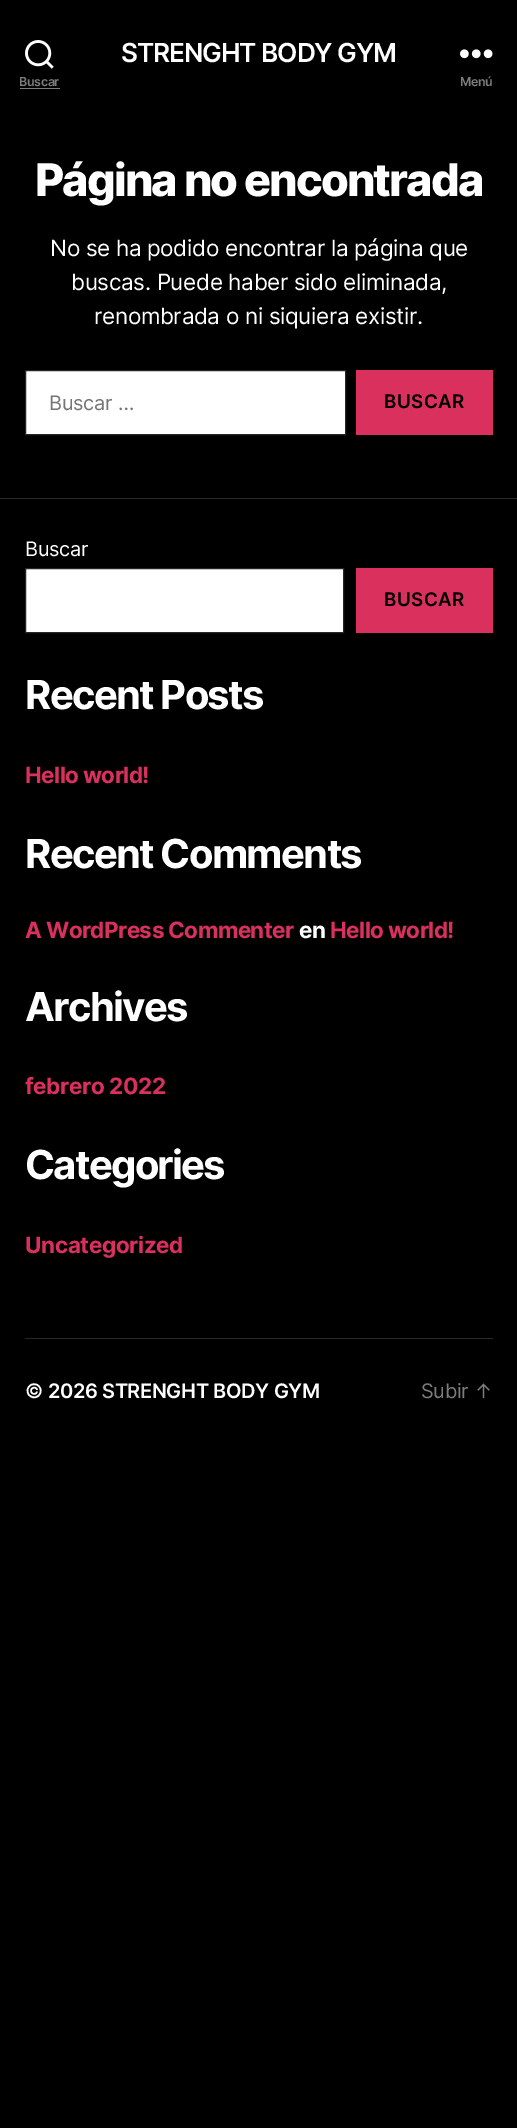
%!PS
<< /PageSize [517 2128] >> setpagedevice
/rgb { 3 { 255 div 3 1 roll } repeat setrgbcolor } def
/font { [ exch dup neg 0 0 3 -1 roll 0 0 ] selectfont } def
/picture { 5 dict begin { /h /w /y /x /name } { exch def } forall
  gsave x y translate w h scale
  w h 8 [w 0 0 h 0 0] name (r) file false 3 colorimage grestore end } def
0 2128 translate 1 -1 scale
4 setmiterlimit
0 0 0 rgb
0 0 517 2128 rectfill
(img_01.rgb) 25 40 29 29 picture
124 124 124 rgb
20 88 40 1 rectfill
(img_02.rgb) 460 49 33 10 picture
255 255 255 rgb
25.5 370.5 moveto 320 0 rlineto 0 64 rlineto -320 0 rlineto closepath gsave fill grestore
38 38 38 rgb
stroke
217 48 93 rgb
356 370 137 65 rectfill
38 38 38 rgb
0 498 517 1 rectfill
25 1338 468 1 rectfill
255 255 255 rgb
25.5 568.5 moveto 318 0 rlineto 0 64 rlineto -318 0 rlineto closepath gsave fill grestore
38 38 38 rgb
stroke
217 48 93 rgb
356 568 137 65 rectfill
/Inter-SemiBold 26.25 font
255 255 255 rgb
121 62 moveto -1.1 0 (STRENGHT BODY GYM) ashow
/Inter-SemiBold 12.5 font
124 124 124 rgb
19 86 moveto -0.35 0 (Buscar) ashow
460 86 moveto -0.35 0 (Menú) ashow
/Inter-ExtraBold 45 font
255 255 255 rgb
35 196 moveto -1.9 0 (Página no encontrada) ashow
/Inter-Regular 22.5 font
50 256 moveto -0.35 0 (No se ha podido encontrar la página que) ashow
71 290 moveto -0.35 0 (buscas. Puede haber sido eliminada,) ashow
94 324 moveto -0.35 0 (renombrada o ni siquiera existir.) ashow
/Inter-Regular 20 font
117 117 117 rgb
49 410 moveto -0.25 0 (Buscar …) ashow
/Inter-SemiBold 18.75 font
0 0 0 rgb
384 408 moveto 0.5 0 (BUSCAR) ashow
/Inter-Regular 20 font
255 255 255 rgb
25 556 moveto -0.35 0 (Buscar) ashow
/Inter-SemiBold 18.75 font
0 0 0 rgb
384 606 moveto 0.5 0 (BUSCAR) ashow
/Inter-Bold 40 font
255 255 255 rgb
25 709 moveto -1.7 0 (Recent Posts) ashow
/Inter-Bold 22.5 font
217 48 93 rgb
25 783 moveto -0.6 0 (Hello world!) ashow
/Inter-Bold 40 font
255 255 255 rgb
25 868 moveto -1.7 0 (Recent Comments) ashow
/Inter-Bold 22.5 font
217 48 93 rgb
25 938 moveto -0.6 0 (A WordPress Commenter) ashow
255 255 255 rgb
299 938 moveto -0.6 0 (en) ashow
217 48 93 rgb
330 938 moveto -0.6 0 (Hello world!) ashow
/Inter-Bold 40 font
255 255 255 rgb
25 1021 moveto -1.7 0 (Archives) ashow
/Inter-Bold 22.5 font
217 48 93 rgb
25 1094 moveto -0.35 0 (febrero 2022) ashow
/Inter-Bold 40 font
255 255 255 rgb
25 1179 moveto -1.7 0 (Categories) ashow
/Inter-Bold 22.5 font
217 48 93 rgb
25 1253 moveto -0.35 0 (Uncategorized) ashow
/Inter-SemiBold 20 font
255 255 255 rgb
25 1398 moveto -0.35 0 (© 2026 STRENGHT BODY GYM) ashow
/Inter-Regular 20 font
124 124 124 rgb
421 1398 moveto -0.35 0 (Subir ↑) ashow
showpage
